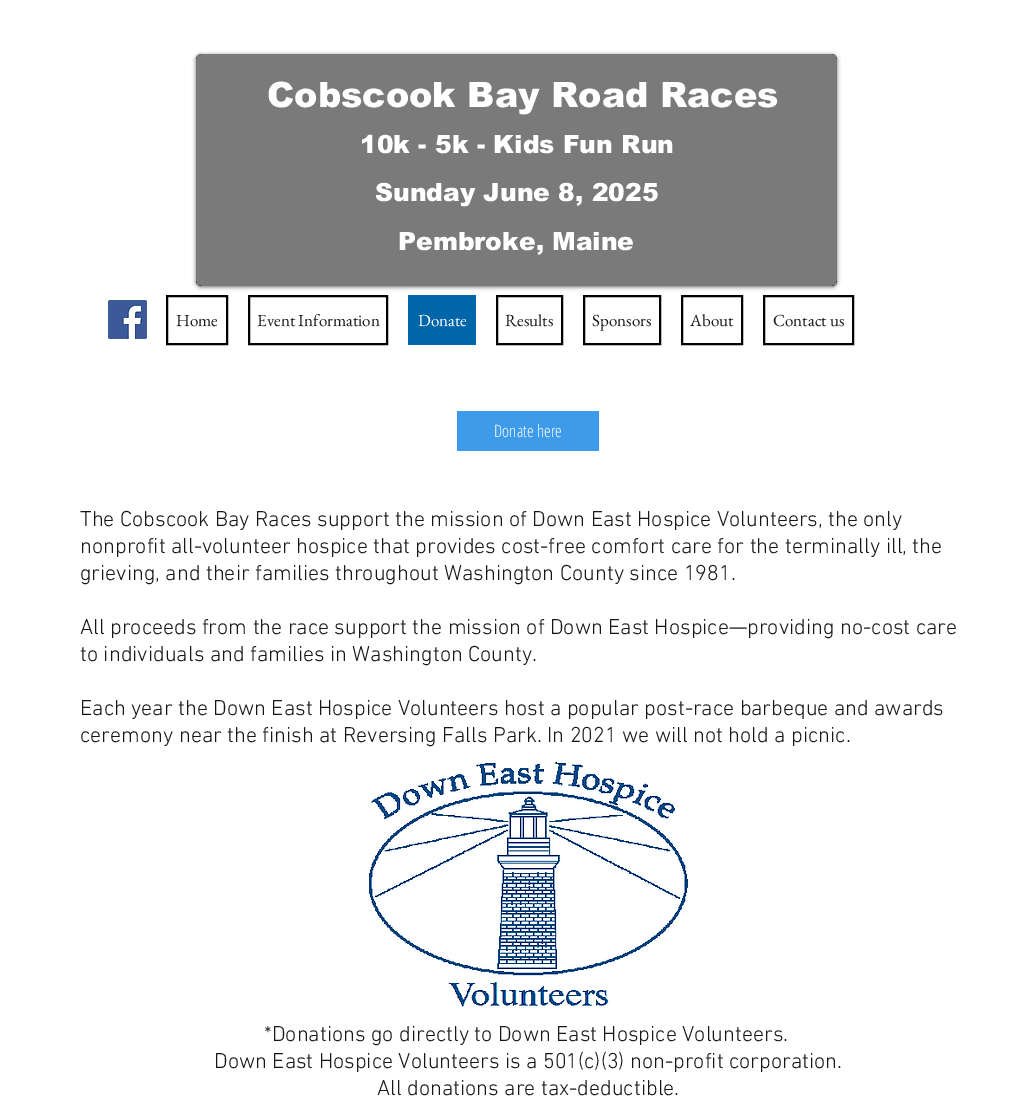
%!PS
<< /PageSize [1020 1106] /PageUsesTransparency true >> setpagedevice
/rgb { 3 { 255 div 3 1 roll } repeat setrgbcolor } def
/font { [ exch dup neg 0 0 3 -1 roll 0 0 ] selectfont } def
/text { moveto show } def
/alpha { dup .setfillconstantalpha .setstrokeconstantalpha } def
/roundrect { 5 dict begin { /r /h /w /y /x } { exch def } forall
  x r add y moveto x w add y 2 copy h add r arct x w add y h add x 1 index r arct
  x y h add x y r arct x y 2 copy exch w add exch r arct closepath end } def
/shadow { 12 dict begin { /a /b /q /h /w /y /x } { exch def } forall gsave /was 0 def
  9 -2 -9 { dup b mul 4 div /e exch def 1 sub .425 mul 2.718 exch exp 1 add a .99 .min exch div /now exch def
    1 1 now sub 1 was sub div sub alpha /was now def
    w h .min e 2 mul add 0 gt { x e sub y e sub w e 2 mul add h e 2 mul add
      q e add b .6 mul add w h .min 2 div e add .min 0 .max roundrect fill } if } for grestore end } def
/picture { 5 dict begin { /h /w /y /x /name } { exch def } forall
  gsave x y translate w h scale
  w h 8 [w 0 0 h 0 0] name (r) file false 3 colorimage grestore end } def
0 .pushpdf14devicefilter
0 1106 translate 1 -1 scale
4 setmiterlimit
255 255 255 rgb
0 0 1020 1106 rectfill
gsave
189 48 moveto 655 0 rlineto 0 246 rlineto -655 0 rlineto closepath 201 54 moveto 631 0 rlineto 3 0 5 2 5 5 rcurveto 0 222 rlineto 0 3 -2 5 -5 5 rcurveto -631 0 rlineto -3 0 -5 -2 -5 -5 rcurveto 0 -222 rlineto 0 -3 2 -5 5 -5 rcurveto closepath eoclip newpath
0 0 0 rgb
196 55 641 232 5 2 0.6 shadow
grestore
0.52 alpha
0 0 0 rgb
196 54 641 232 5 roundrect fill
1 alpha
(img_01.rgb) 108 300 39 39 picture
2 setlinewidth
167 296 60 48 rectstroke
249 296 138 48 rectstroke
0 101 169 rgb
408 295 68 50 rectfill
0 0 0 rgb
497 296 65 48 rectstroke
584 296 76 48 rectstroke
682 296 60 48 rectstroke
764 296 89 48 rectstroke
61 155 233 rgb
457 411 142 40 rectfill
(img_02.rgb) 369 762 319 247 picture
/arial-Black 35 font
255 255 255 rgb
(Cobscook Bay Road Races) 267 107 text
/arial-Black 25 font
(10k - 5k - Kids Fun Run) 360 153 text
(Sunday June 8, 2025) 375 201 text
(Pembroke, Maine) 398 250 text
/EBGaramond-Regular 17 font
23 23 23 rgb
(Home) 176 326 text
(Event Information) 257 326 text
255 255 255 rgb
(Donate) 418 326 text
23 23 23 rgb
(Results) 505 326 text
(Sponsors) 592 326 text
(About) 690 326 text
(Contact us) 773 326 text
/OpenSansCondensed-Light 17 font
255 255 255 rgb
(Donate here) 494 437 text
/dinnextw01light-Light 22 font
23 23 23 rgb
(The Cobscook Bay Races support the mission of Down East Hospice Volunteers, the only) 80 526 text
(nonprofit all-volunteer hospice that provides cost-free comfort care for the terminally ill, the) 80 553 text
(grieving, and their families throughout Washington County since 1981.) 80 580 text
(All proceeds from the race support the mission of Down East Hospice—providing no-cost care) 80 634 text
(to individuals and families in Washington County.) 80 661 text
(Each year the Down East Hospice Volunteers host a popular post-race barbeque and awards) 80 715 text
(ceremony near the finish at Reversing Falls Park. In 2021 we will not hold a picnic.) 80 742 text
(*Donations go directly to Down East Hospice Volunteers.) 264 1041 text
(Down East Hospice Volunteers is a 501\(c\)\(3\) non-profit corporation.) 214 1068 text
(All donations are tax-deductible.) 377 1095 text
.poppdf14devicefilter showpage
